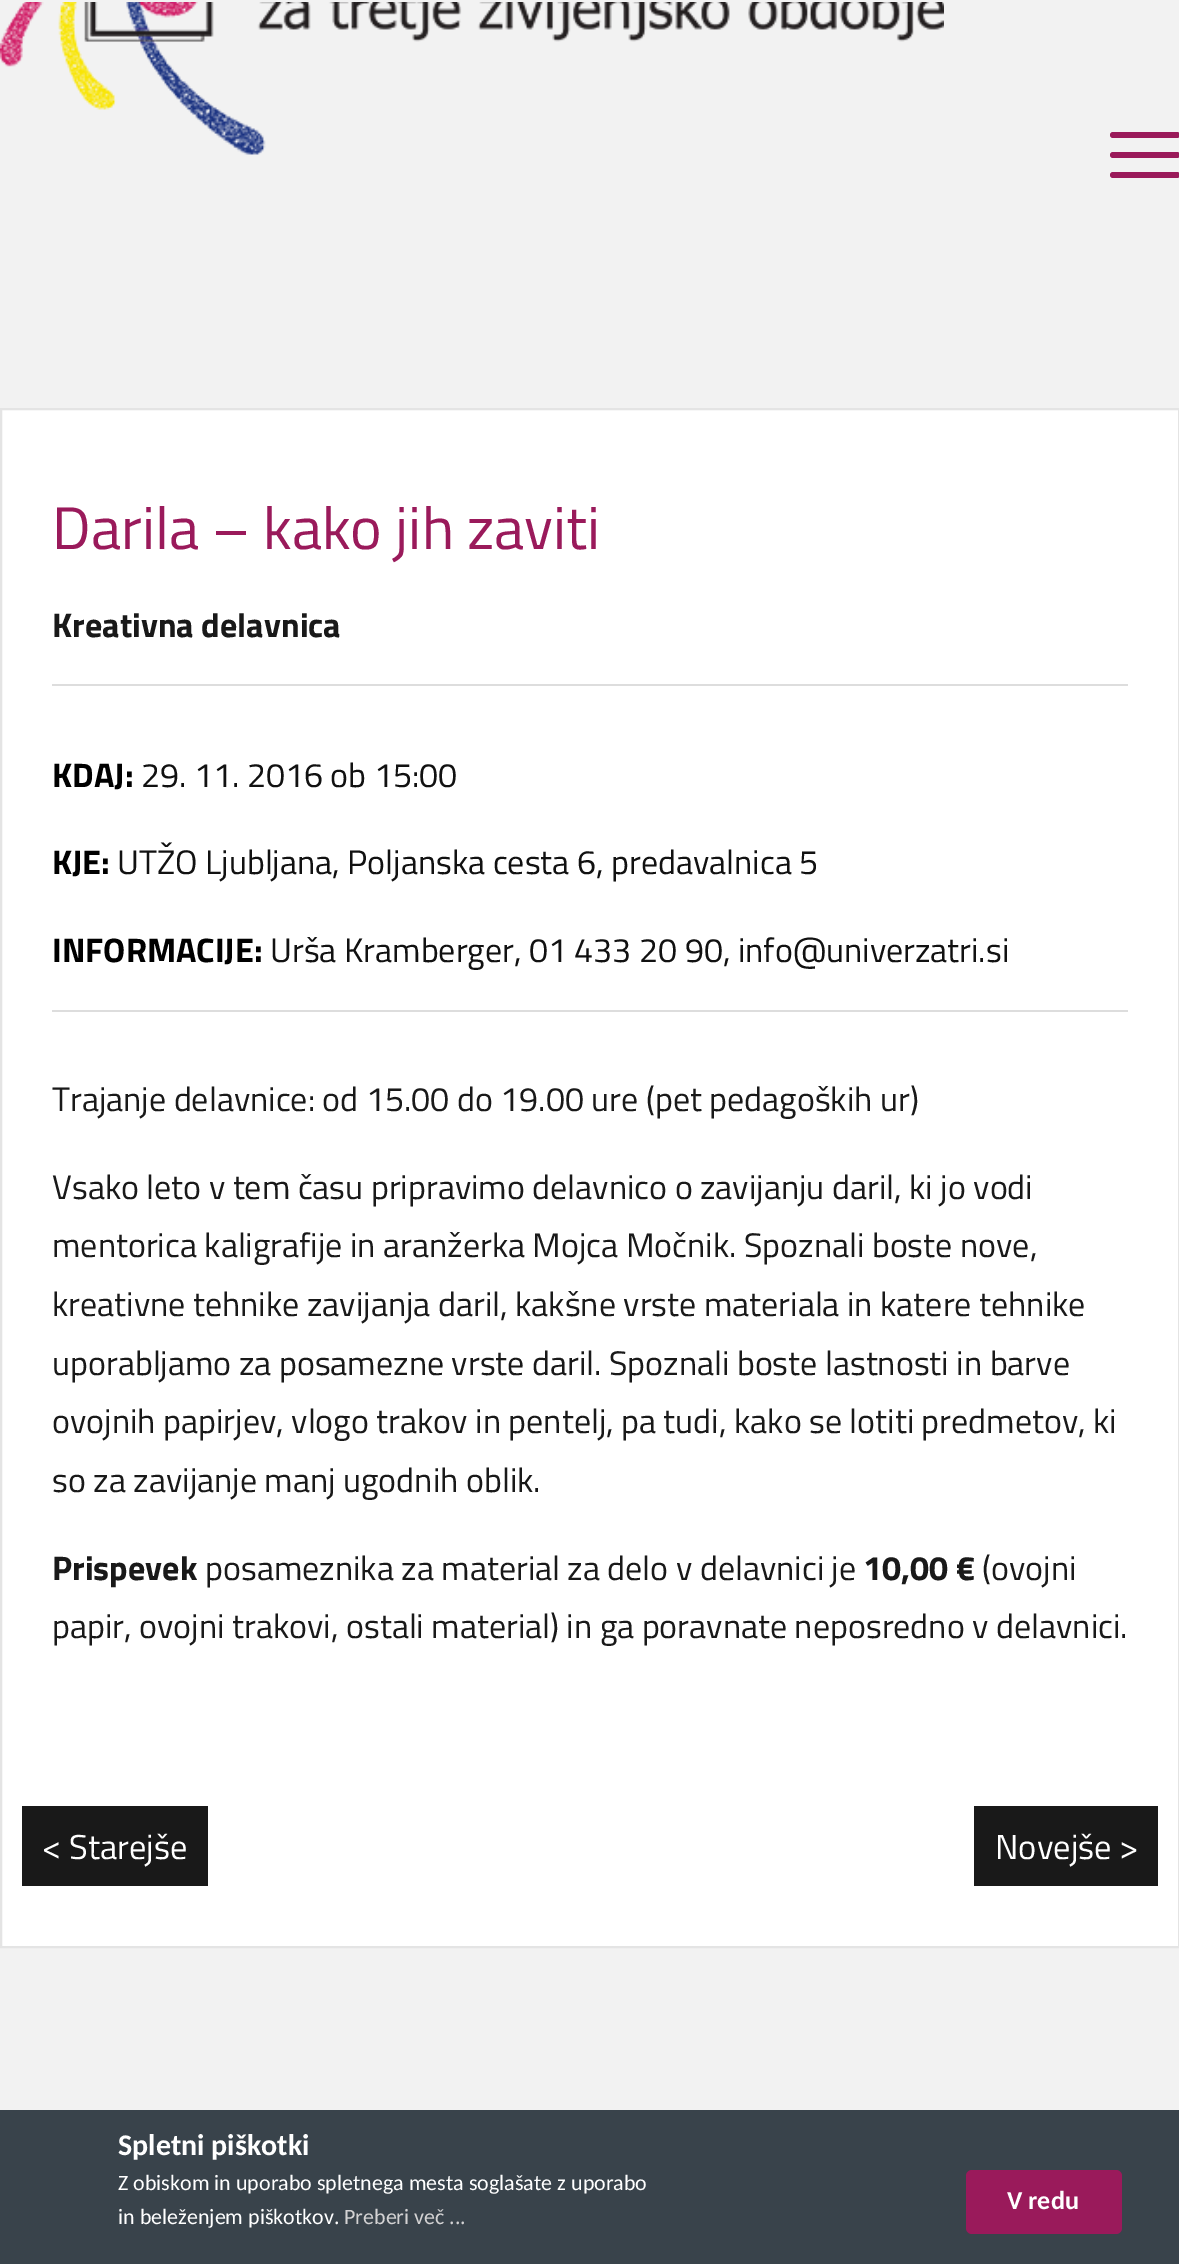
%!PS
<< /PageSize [1179 2264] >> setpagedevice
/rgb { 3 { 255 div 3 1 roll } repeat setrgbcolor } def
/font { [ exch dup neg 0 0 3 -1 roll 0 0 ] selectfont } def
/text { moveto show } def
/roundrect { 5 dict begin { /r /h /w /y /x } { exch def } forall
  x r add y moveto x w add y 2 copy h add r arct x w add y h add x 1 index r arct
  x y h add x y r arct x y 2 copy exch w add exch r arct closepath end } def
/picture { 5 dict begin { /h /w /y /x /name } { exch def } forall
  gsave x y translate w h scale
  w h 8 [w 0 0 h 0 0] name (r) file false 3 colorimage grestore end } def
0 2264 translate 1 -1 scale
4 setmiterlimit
242 242 242 rgb
0 0 1179 2264 rectfill
(img_01.rgb) 0 2 944 153 picture
154 26 90 rgb
1110 152 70 6 3 roundrect fill
1110 132 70 6 3 roundrect fill
1110 172 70 6 3 roundrect fill
255 255 255 rgb
1 409 moveto 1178 0 rlineto 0 1538 rlineto -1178 0 rlineto closepath gsave fill grestore
228 228 228 rgb
2 setlinewidth
stroke
221 221 221 rgb
52 684 1076 2 rectfill
52 1010 1076 2 rectfill
25 25 25 rgb
22 1806 186 80 rectfill
974 1806 184 80 rectfill
57 67 75 rgb
0 2110 1179 154 rectfill
154 26 91 rgb
966 2170 156 64 6 roundrect fill
/TitilliumWeb-Regular 60 font
(Darila – kako jih zaviti) 52 549 text
/TitilliumWeb-Bold 34 font
25 25 25 rgb
(Kreativna delavnica) 52 637 text
0 0 0 rgb
(KDAJ:) 52 787 text
/TitilliumWeb-Regular 34 font
17 17 17 rgb
(29. 11. 2016 ob 15:00) 141 787 text
/TitilliumWeb-Bold 34 font
0 0 0 rgb
(KJE:) 52 874 text
/TitilliumWeb-Regular 34 font
17 17 17 rgb
(UTŽO Ljubljana, Poljanska cesta 6, predavalnica 5) 117 874 text
/TitilliumWeb-Bold 34 font
0 0 0 rgb
(INFORMACIJE:) 52 962 text
/TitilliumWeb-Regular 34 font
17 17 17 rgb
(Urša Kramberger, 01 433 20 90, info@univerzatri.si) 270 962 text
25 25 25 rgb
(Trajanje delavnice: od 15.00 do 19.00 ure \(pet pedagoških ur\)) 52 1111 text
(Vsako leto v tem času pripravimo delavnico o zavijanju daril, ki jo vodi) 52 1199 text
(mentorica kaligrafije in aranžerka Mojca Močnik. Spoznali boste nove,) 52 1257 text
(kreativne tehnike zavijanja daril, kakšne vrste materiala in katere tehnike) 52 1316 text
(uporabljamo za posamezne vrste daril. Spoznali boste lastnosti in barve) 52 1375 text
(ovojnih papirjev, vlogo trakov in pentelj, pa tudi, kako se lotiti predmetov, ki) 52 1433 text
(so za zavijanje manj ugodnih oblik.) 52 1492 text
/TitilliumWeb-Bold 34 font
(Prispevek) 52 1580 text
/TitilliumWeb-Regular 34 font
(posameznika za material za delo v delavnici je) 205 1580 text
/TitilliumWeb-Bold 34 font
(10,00 €) 863 1580 text
/TitilliumWeb-Regular 34 font
(\(ovojni) 982 1580 text
(papir, ovojni trakovi, ostali material\) in ga poravnate neposredno v delavnici.) 52 1638 text
/TitilliumWeb-Regular 34.5 font
255 255 255 rgb
(< Starejše) 42 1859 text
(Novejše >) 995 1859 text
/Carlito-Bold 30 font
(Spletni piškotki) 118 2155 text
/Carlito-Regular 22 font
(Z obiskom in uporabo spletnega mesta soglašate z uporabo) 118 2190 text
(in beleženjem piškotkov.) 118 2224 text
211 210 211 rgb
(Preberi več ...) 344 2224 text
/Carlito-Bold 26 font
255 255 255 rgb
(V redu) 1007 2209 text
showpage
